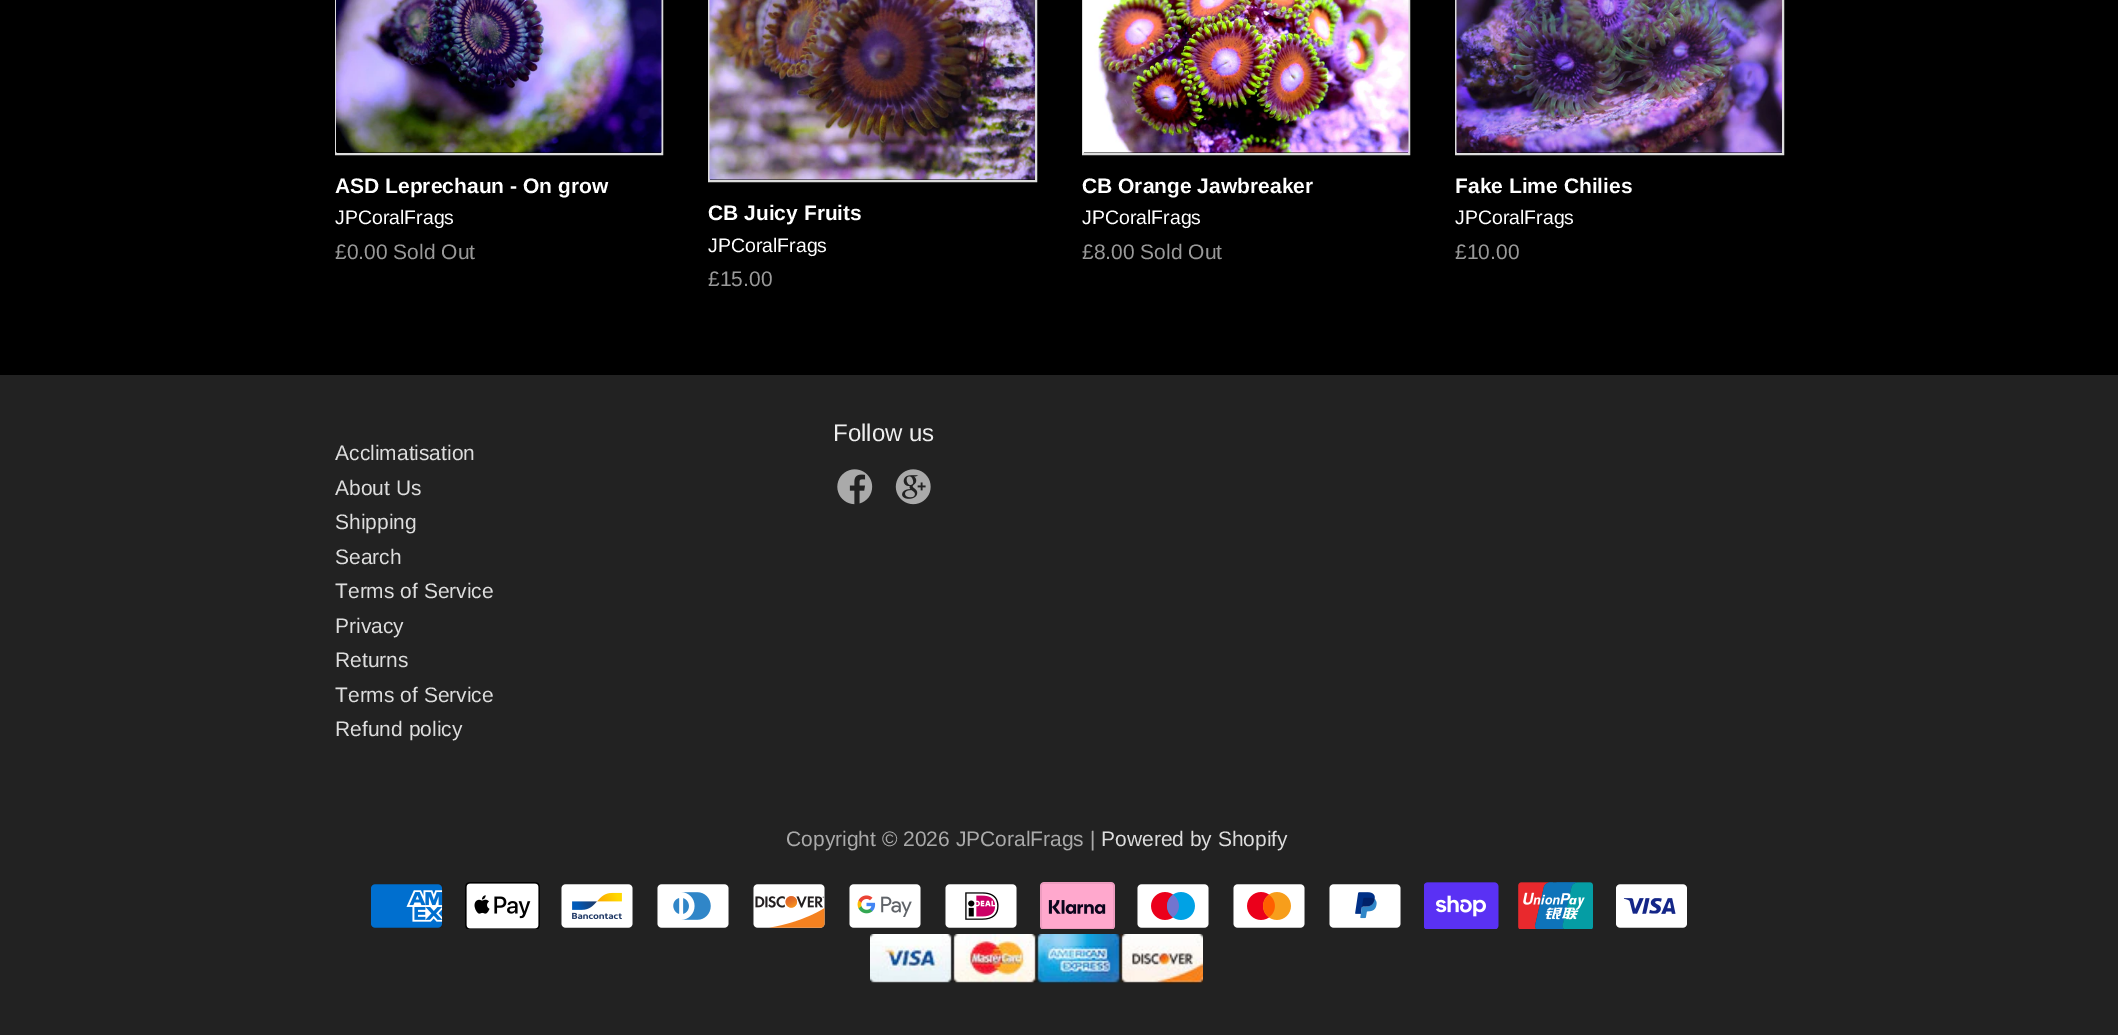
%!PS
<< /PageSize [2118 1035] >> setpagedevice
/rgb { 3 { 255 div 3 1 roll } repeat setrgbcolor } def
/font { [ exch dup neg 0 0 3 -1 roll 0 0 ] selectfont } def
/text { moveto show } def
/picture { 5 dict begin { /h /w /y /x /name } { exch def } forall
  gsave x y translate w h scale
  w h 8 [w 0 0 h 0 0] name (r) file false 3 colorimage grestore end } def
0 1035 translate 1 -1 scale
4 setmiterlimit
0 0 0 rgb
0 0 2118 1035 rectfill
221 221 221 rgb
2 setlinewidth
336 -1 326 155 rectstroke
(img_01.rgb) 336 0 326 153 picture
709 -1 327 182 rectstroke
(img_02.rgb) 709 0 326 180 picture
1083 -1 326 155 rectstroke
(img_03.rgb) 1083 0 326 153 picture
1456 -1 327 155 rectstroke
(img_04.rgb) 1456 0 326 153 picture
34 34 34 rgb
0 375 2118 660 rectfill
(img_05.rgb) 837 469 36 36 picture
(img_06.rgb) 895 469 36 36 picture
(img_07.rgb) 371 884 72 44 picture
(img_08.rgb) 465 882 75 47 picture
(img_09.rgb) 561 884 72 44 picture
(img_10.rgb) 657 884 72 44 picture
(img_11.rgb) 753 884 72 44 picture
(img_12.rgb) 849 884 72 44 picture
(img_13.rgb) 945 884 72 44 picture
(img_14.rgb) 1040 882 75 47 picture
(img_15.rgb) 1137 884 72 44 picture
(img_16.rgb) 1233 884 72 44 picture
(img_17.rgb) 1329 884 72 44 picture
(img_18.rgb) 1424 882 75 47 picture
(img_19.rgb) 1518 882 75 47 picture
(img_20.rgb) 1616 884 71 44 picture
(img_21.rgb) 870 934 333 50 picture
/LiberationSans-Bold 21 font
255 255 255 rgb
(ASD Leprechaun - On grow) 335 193 text
/LiberationSans-Regular 19.5 font
(JPCoralFrags) 335 224 text
/LiberationSans-Regular 21 font
153 153 153 rgb
(£0.00 Sold Out) 335 259 text
/LiberationSans-Bold 21 font
255 255 255 rgb
(CB Juicy Fruits) 708 220 text
/LiberationSans-Regular 19.5 font
(JPCoralFrags) 708 252 text
/LiberationSans-Regular 21 font
153 153 153 rgb
(£15.00) 708 286 text
/LiberationSans-Bold 21 font
255 255 255 rgb
(CB Orange Jawbreaker) 1082 193 text
/LiberationSans-Regular 19.5 font
(JPCoralFrags) 1082 224 text
/LiberationSans-Regular 21 font
153 153 153 rgb
(£8.00 Sold Out) 1082 259 text
/LiberationSans-Bold 21 font
255 255 255 rgb
(Fake Lime Chilies) 1455 193 text
/LiberationSans-Regular 19.5 font
(JPCoralFrags) 1455 224 text
/LiberationSans-Regular 21 font
153 153 153 rgb
(£10.00) 1455 259 text
/LiberationSans-Regular 24 font
238 238 238 rgb
(Follow us) 833 441 text
/LiberationSans-Regular 21 font
221 221 221 rgb
(Acclimatisation) 335 460 text
(About Us) 335 495 text
(Shipping) 335 529 text
(Search) 335 564 text
(Terms of Service) 335 598 text
(Privacy) 335 633 text
(Returns) 335 667 text
(Terms of Service) 335 702 text
(Refund policy) 335 736 text
170 170 170 rgb
(Copyright © 2026 JPCoralFrags |) 786 846 text
221 221 221 rgb
(Powered by Shopify) 1101 846 text
showpage
